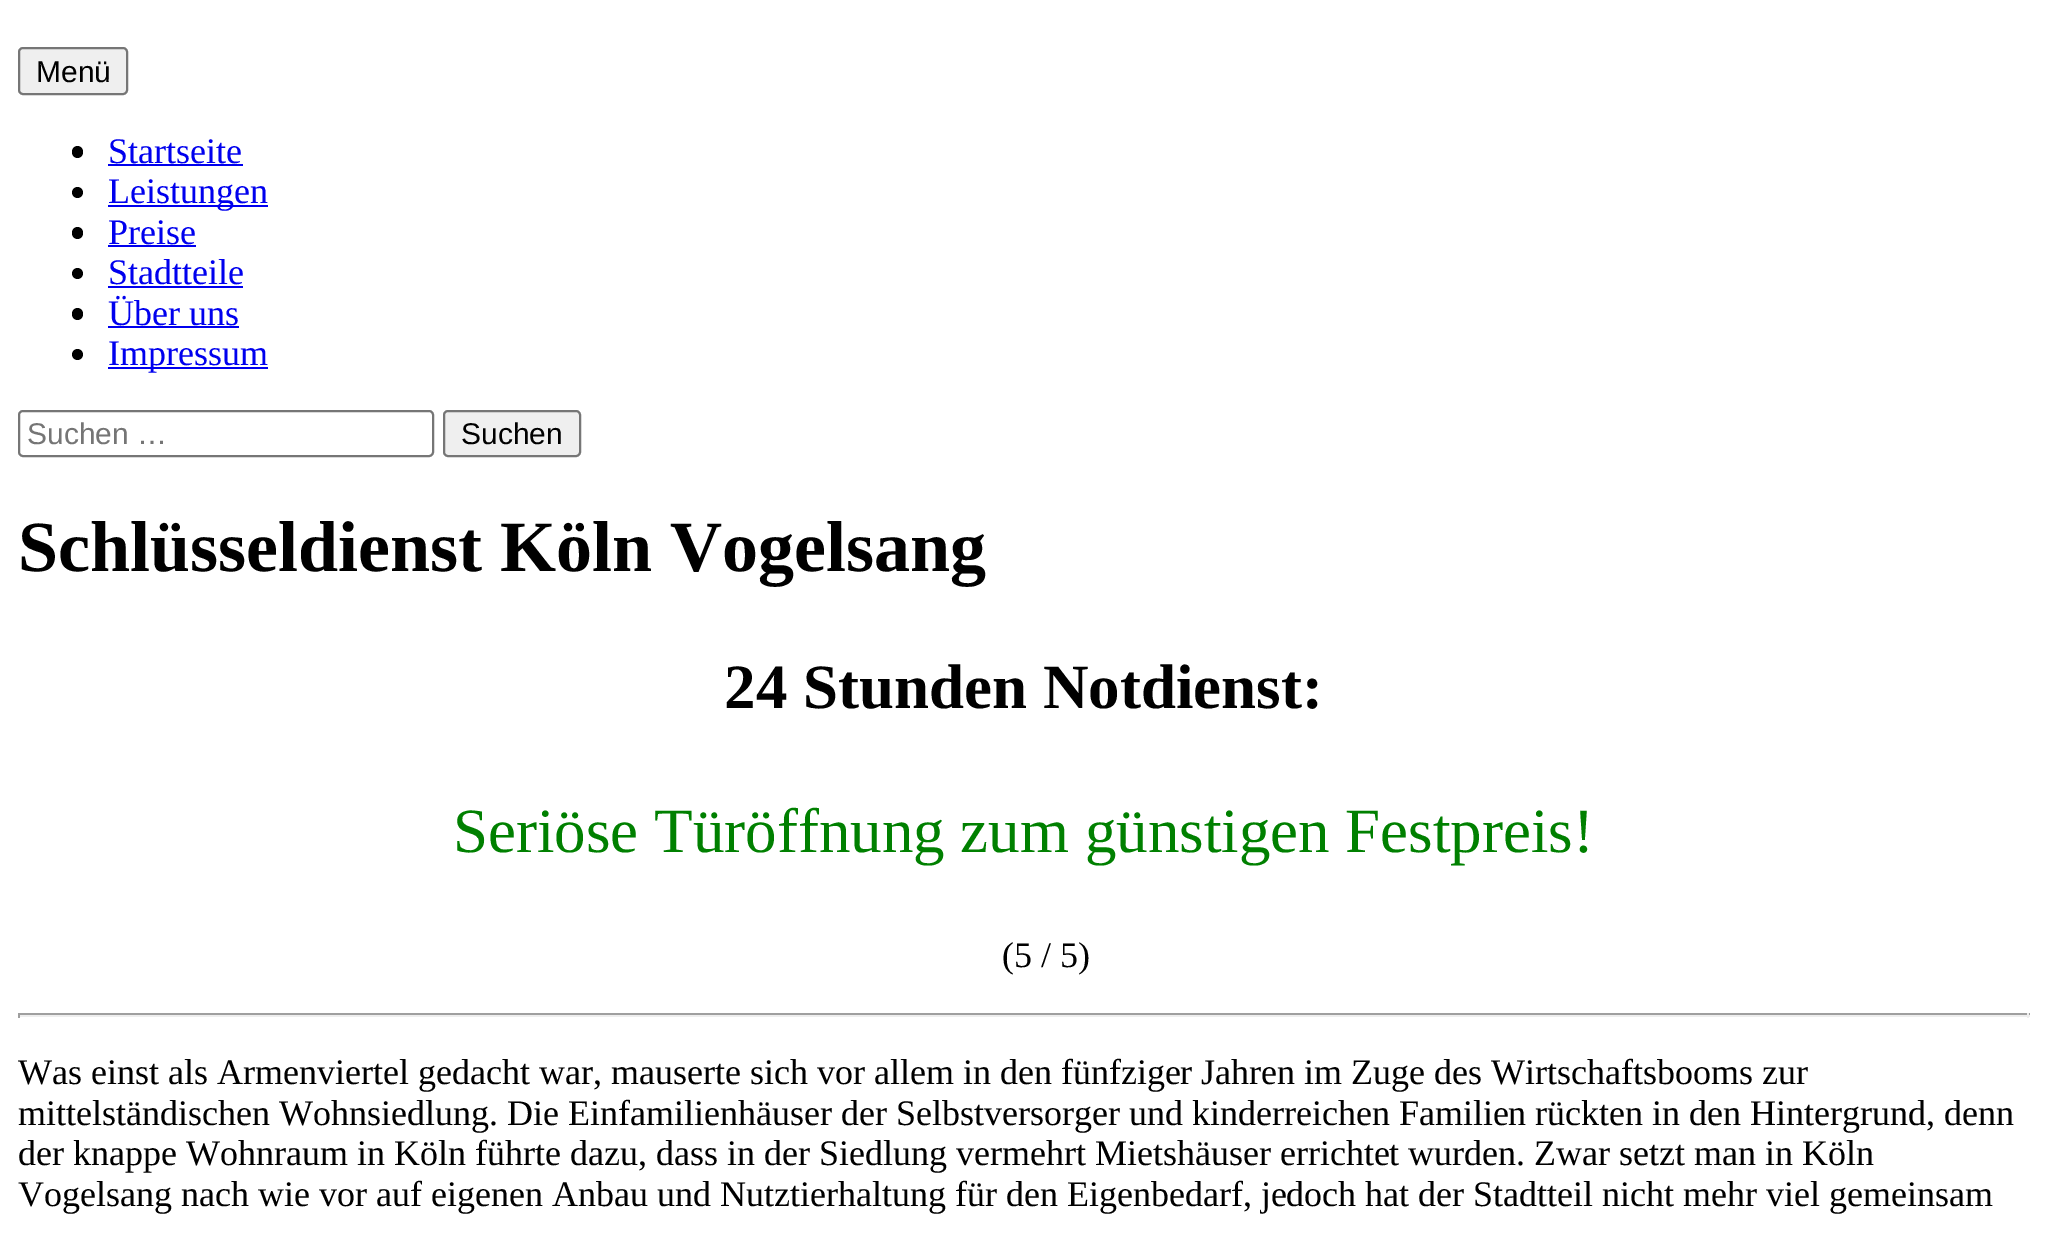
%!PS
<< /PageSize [2046 1239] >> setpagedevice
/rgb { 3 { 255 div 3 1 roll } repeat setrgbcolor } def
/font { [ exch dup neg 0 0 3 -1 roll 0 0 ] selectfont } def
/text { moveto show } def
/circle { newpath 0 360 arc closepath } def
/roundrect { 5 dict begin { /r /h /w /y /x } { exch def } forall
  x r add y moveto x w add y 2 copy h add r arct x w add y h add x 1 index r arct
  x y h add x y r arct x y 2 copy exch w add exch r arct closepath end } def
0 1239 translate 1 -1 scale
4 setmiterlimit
255 255 255 rgb
0 0 2046 1239 rectfill
239 239 239 rgb
19 48 108 46 4 roundrect gsave fill grestore
118 118 118 rgb
2 setlinewidth
stroke
0 0 0 rgb
72 146 11 12 5.5 roundrect fill
0 0 238 rgb
108 164 135 2 rectfill
0 0 0 rgb
77.5 192.5 5.5 circle fill
0 0 238 rgb
108 205 160 2 rectfill
0 0 0 rgb
72 227 11 12 5.5 roundrect fill
0 0 238 rgb
108 245 88 2 rectfill
0 0 0 rgb
77.5 273.5 5.5 circle fill
0 0 238 rgb
108 286 135 2 rectfill
0 0 0 rgb
72 308 11 12 5.5 roundrect fill
0 0 238 rgb
108 326 131 2 rectfill
0 0 0 rgb
77.5 354.5 5.5 circle fill
0 0 238 rgb
108 367 160 2 rectfill
118 118 118 rgb
19 411 414 45 4 roundrect stroke
239 239 239 rgb
444 411 136 45 4 roundrect gsave fill grestore
118 118 118 rgb
stroke
159 159 159 rgb
18 1013 2012 2 rectfill
238 238 238 rgb
2027 1013 2 5 rectfill
18 1015 2012 2 rectfill
159 159 159 rgb
18 1013 2 5 rectfill
/LiberationSans-Regular 30 font
0 0 0 rgb
(Menü) 36 82 text
/LiberationSerif-Regular 36 font
0 0 238 rgb
(Startseite) 108 163 text
(Leistungen) 108 203 text
(Preise) 108 244 text
(Stadtteile) 108 284 text
(Über uns) 108 325 text
(Impressum) 108 365 text
/LiberationSans-Regular 30 font
117 117 117 rgb
(Suchen …) 27 444 text
0 0 0 rgb
(Suchen) 461 444 text
/LiberationSerif-Bold 72 font
(Schlüsseldienst Köln Vogelsang) 18 571 text
/LiberationSerif-Bold 63 font
(24 Stunden Notdienst:) 724 708 text
/LiberationSerif-Regular 63 font
0 128 0 rgb
(Seriöse Türöffnung zum günstigen Festpreis!) 453 852 text
/LiberationSerif-Regular 36 font
0 0 0 rgb
(\(5 / 5\)) 1002 967 text
(Was einst als Armenviertel gedacht war, mauserte sich vor allem in den fünfziger Jahren im Zuge des Wirtschaftsbooms zur) 18 1084 text
(mittelständischen Wohnsiedlung. Die Einfamilienhäuser der Selbstversorger und kinderreichen Familien rückten in den Hintergrund, denn) 18 1125 text
(der knappe Wohnraum in Köln führte dazu, dass in der Siedlung vermehrt Mietshäuser errichtet wurden. Zwar setzt man in Köln) 18 1165 text
(Vogelsang nach wie vor auf eigenen Anbau und Nutztierhaltung für den Eigenbedarf, jedoch hat der Stadtteil nicht mehr viel gemeinsam) 18 1206 text
showpage
